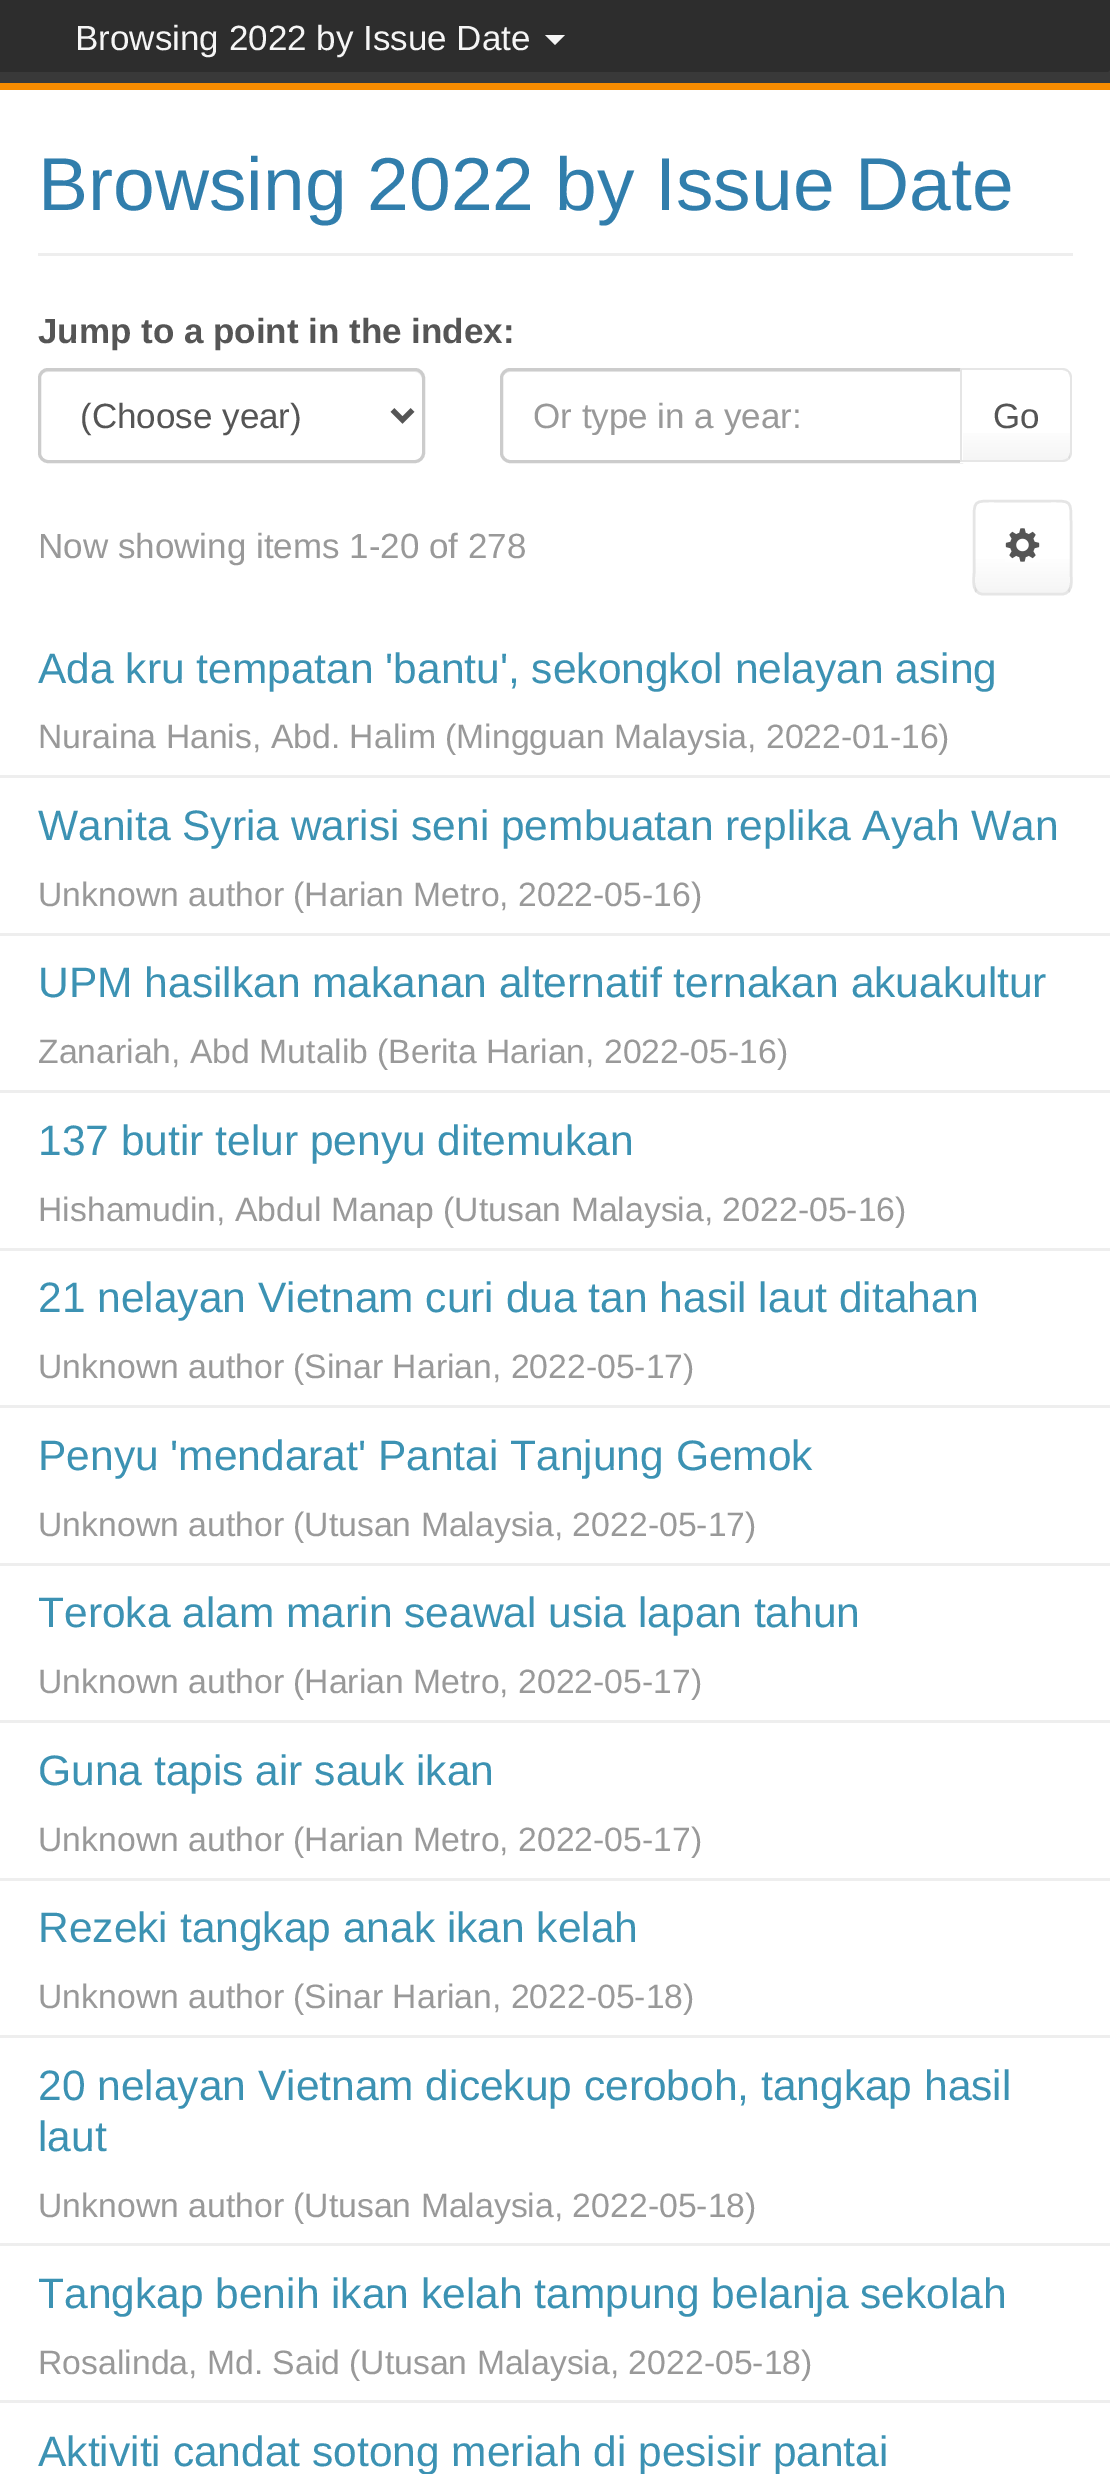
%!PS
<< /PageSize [1110 2474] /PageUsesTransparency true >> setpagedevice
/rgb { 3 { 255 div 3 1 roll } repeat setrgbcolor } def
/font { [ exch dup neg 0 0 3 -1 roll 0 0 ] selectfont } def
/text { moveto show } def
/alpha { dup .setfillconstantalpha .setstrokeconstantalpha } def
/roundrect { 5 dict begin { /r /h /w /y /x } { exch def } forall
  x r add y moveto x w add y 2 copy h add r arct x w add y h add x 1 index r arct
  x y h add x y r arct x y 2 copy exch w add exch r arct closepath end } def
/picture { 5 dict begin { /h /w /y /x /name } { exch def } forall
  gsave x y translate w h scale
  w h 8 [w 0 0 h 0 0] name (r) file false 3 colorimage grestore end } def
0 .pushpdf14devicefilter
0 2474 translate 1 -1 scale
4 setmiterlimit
45 45 45 rgb
0 0 1110 2474 rectfill
57 57 57 rgb
-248 -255 moveto 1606 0 rlineto 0 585 rlineto -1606 0 rlineto closepath -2 -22 moveto 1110 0 rlineto 1 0 2 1 2 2 rcurveto 0 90 rlineto 0 1 -1 2 -2 2 rcurveto -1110 0 rlineto -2 0 -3 -1 -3 -2 rcurveto 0 -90 rlineto 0 -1 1 -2 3 -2 rcurveto closepath eofill
248 140 0 rgb
0 83 1110 7 rectfill
245 245 245 rgb
545 35 moveto 20 0 rlineto -10 10 rlineto closepath fill
255 255 255 rgb
0 90 1110 2384 rectfill
238 238 238 rgb
38 253 1035 3 rectfill
236 236 236 rgb
48 372 moveto 367 0 rlineto 4 0 7 4 7 8 rcurveto 0 76 rlineto 1 -1 1 -3 1 -4 rcurveto 0 -74 rlineto 0 -4 -4 -8 -8 -8 rcurveto -367 0 rlineto -4 0 -8 4 -8 8 rcurveto 0 2 rlineto 0 -4 3 -8 8 -8 rcurveto closepath fill
204 204 204 rgb
3 setlinewidth
39.5 369.5 384 92 8.5 roundrect stroke
85 85 85 rgb
5 setlinewidth
392.5 410 moveto 10 10 rlineto 10 -10 rlineto stroke
236 236 236 rgb
510 372 moveto 450 0 rlineto 0 -2 rlineto -449 0 rlineto -4 0 -7 3 -8 6 rcurveto 2 -2 4 -4 7 -4 rcurveto closepath fill
204 204 204 rgb
3 setlinewidth
510 369.5 moveto 451.5 0 rlineto 0 92 rlineto -451.5 0 rlineto -4.5 0 -8.5 -4 -8.5 -8.5 rcurveto 0 -75 rlineto 0 -4.5 4 -8.5 8.5 -8.5 rcurveto closepath stroke
255 255 255 rgb
960 368 moveto 103 0 rlineto 5.5 0 10 4.5 10 10 rcurveto 0 75 rlineto 0 5.5 -4.5 10 -10 10 rcurveto -103 0 rlineto closepath fill
gsave 963 433 moveto 107 0 rlineto 0 27 rlineto -107 0 rlineto closepath clip newpath
<< /ShadingType 2 /ColorSpace /DeviceRGB /Coords [1016 370 1016 460] /Extend [true true] /Function << /FunctionType 3 /Domain [0 1] /Functions [<< /FunctionType 2 /Domain [0 1] /C0 [1 1 1] /C1 [1 1 1] /N 1 >> << /FunctionType 2 /Domain [0 1] /C0 [1 1 1] /C1 [0.961 0.961 0.961] /N 1 >>] /Bounds [0.6] /Encode [0 1 0 1] >> >> shfill grestore
230 230 230 rgb
1069 371 moveto -1 -2 -4 -3 -7 -3 rcurveto -102 0 rlineto 2 2 rlineto 100 0 rlineto 2 0 4 1 6 2 rcurveto closepath fill
0.1 alpha
0 0 0 rgb
1069 371 moveto 2 1 3 4 3 7 rcurveto 0 74 rlineto 0 3 -1 6 -3 7 rcurveto -1 -1 rlineto 1 -2 2 -4 2 -6 rcurveto 0 -74 rlineto 0 -2 -1 -4 -2 -6 rcurveto closepath fill
1 alpha
230 230 230 rgb
1069 459 moveto -1 2 -4 3 -7 3 rcurveto -102 0 rlineto 2 -2 rlineto 100 0 rlineto 2 0 4 -1 6 -2 rcurveto closepath fill
0.1 alpha
0 0 0 rgb
962 370 moveto 0 90 rlineto -2 2 rlineto 0 -94 rlineto closepath fill
gsave
973 500 100 95 10 roundrect clip newpath
1 alpha
gsave 975 503 moveto 95 0 rlineto 0 90 rlineto -95 0 rlineto closepath clip newpath
<< /ShadingType 2 /ColorSpace /DeviceRGB /Coords [1023 503 1023 593] /Extend [true true] /Function << /FunctionType 3 /Domain [0 1] /Functions [<< /FunctionType 2 /Domain [0 1] /C0 [1 1 1] /C1 [1 1 1] /N 1 >> << /FunctionType 2 /Domain [0 1] /C0 [1 1 1] /C1 [0.961 0.961 0.961] /N 1 >>] /Bounds [0.6] /Encode [0 1 0 1] >> >> shfill grestore
grestore
1 alpha
230 230 230 rgb
2.5 setlinewidth
1068.5 591 moveto -1.5 2 -3.5 3 -6 3 rcurveto -80 0 rlineto -2.5 0 -4.5 -1 -6 -3 rcurveto stroke
0.1 alpha
0 0 0 rgb
976.5 591 moveto -4.5 -4.5 -2.5 -14 -2.5 -18.5 rcurveto 0 -50 rlineto 0 -22.5 -0.5 -21.5 22 -21.5 rcurveto 53 0 rlineto 22.5 0 22 -1 22 21.5 rcurveto 0 50 rlineto 0 4.5 2 14 -2.5 18.5 rcurveto stroke
1 alpha
(img_01.rgb) 1005 528 35 34 picture
238 238 238 rgb
0 775 1110 3 rectfill
0 933 1110 3 rectfill
0 1090 1110 3 rectfill
0 1248 1110 3 rectfill
0 1405 1110 3 rectfill
0 1563 1110 3 rectfill
0 1720 1110 3 rectfill
0 1878 1110 3 rectfill
0 2035 1110 3 rectfill
0 2243 1110 3 rectfill
0 2400 1110 3 rectfill
/LiberationSans-Regular 35 font
245 245 245 rgb
(Browsing 2022 by Issue Date) 75 50 text
/LiberationSans-Regular 75 font
49 126 172 rgb
(Browsing 2022 by Issue Date) 38 210 text
/LiberationSans-Bold 35 font
85 85 85 rgb
(Jump to a point in the index:) 38 343 text
/LiberationSans-Regular 35 font
(\(Choose year\)) 80 428 text
gsave
533 395 397 40 rectclip
153 153 153 rgb
(Or type in a year:) 533 428 text
grestore
(Go) 993 428 text
153 153 153 rgb
(Now showing items 1-20 of 278) 38 558 text
/LiberationSans-Regular 42.5 font
60 146 179 rgb
(Ada kru tempatan 'bantu', sekongkol nelayan asing) 38 683 text
/LiberationSans-Regular 33.75 font
153 153 153 rgb
(Nuraina Hanis, Abd. Halim) 38 748 text
(\(Mingguan Malaysia, 2022-01-16\)) 445 748 text
/LiberationSans-Regular 42.5 font
60 146 179 rgb
(Wanita Syria warisi seni pembuatan replika Ayah Wan) 38 840 text
/LiberationSans-Regular 33.75 font
153 153 153 rgb
(Unknown author) 38 906 text
(\(Harian Metro, 2022-05-16\)) 293 906 text
/LiberationSans-Regular 42.5 font
60 146 179 rgb
(UPM hasilkan makanan alternatif ternakan akuakultur) 38 997 text
/LiberationSans-Regular 33.75 font
153 153 153 rgb
(Zanariah, Abd Mutalib) 38 1063 text
(\(Berita Harian, 2022-05-16\)) 377 1063 text
/LiberationSans-Regular 42.5 font
60 146 179 rgb
(137 butir telur penyu ditemukan) 38 1155 text
/LiberationSans-Regular 33.75 font
153 153 153 rgb
(Hishamudin, Abdul Manap) 38 1221 text
(\(Utusan Malaysia, 2022-05-16\)) 443 1221 text
/LiberationSans-Regular 42.5 font
60 146 179 rgb
(21 nelayan Vietnam curi dua tan hasil laut ditahan) 38 1312 text
/LiberationSans-Regular 33.75 font
153 153 153 rgb
(Unknown author) 38 1378 text
(\(Sinar Harian, 2022-05-17\)) 293 1378 text
/LiberationSans-Regular 42.5 font
60 146 179 rgb
(Penyu 'mendarat' Pantai Tanjung Gemok) 38 1470 text
/LiberationSans-Regular 33.75 font
153 153 153 rgb
(Unknown author) 38 1536 text
(\(Utusan Malaysia, 2022-05-17\)) 293 1536 text
/LiberationSans-Regular 42.5 font
60 146 179 rgb
(Teroka alam marin seawal usia lapan tahun) 38 1627 text
/LiberationSans-Regular 33.75 font
153 153 153 rgb
(Unknown author) 38 1693 text
(\(Harian Metro, 2022-05-17\)) 293 1693 text
/LiberationSans-Regular 42.5 font
60 146 179 rgb
(Guna tapis air sauk ikan) 38 1785 text
/LiberationSans-Regular 33.75 font
153 153 153 rgb
(Unknown author) 38 1851 text
(\(Harian Metro, 2022-05-17\)) 293 1851 text
/LiberationSans-Regular 42.5 font
60 146 179 rgb
(Rezeki tangkap anak ikan kelah) 38 1942 text
/LiberationSans-Regular 33.75 font
153 153 153 rgb
(Unknown author) 38 2008 text
(\(Sinar Harian, 2022-05-18\)) 293 2008 text
/LiberationSans-Regular 42.5 font
60 146 179 rgb
(20 nelayan Vietnam dicekup ceroboh, tangkap hasil) 38 2100 text
(laut) 38 2151 text
/LiberationSans-Regular 33.75 font
153 153 153 rgb
(Unknown author) 38 2217 text
(\(Utusan Malaysia, 2022-05-18\)) 293 2217 text
/LiberationSans-Regular 42.5 font
60 146 179 rgb
(Tangkap benih ikan kelah tampung belanja sekolah) 38 2308 text
/LiberationSans-Regular 33.75 font
153 153 153 rgb
(Rosalinda, Md. Said) 38 2374 text
(\(Utusan Malaysia, 2022-05-18\)) 349 2374 text
/LiberationSans-Regular 42.5 font
60 146 179 rgb
(Aktiviti candat sotong meriah di pesisir pantai) 38 2466 text
.poppdf14devicefilter showpage
